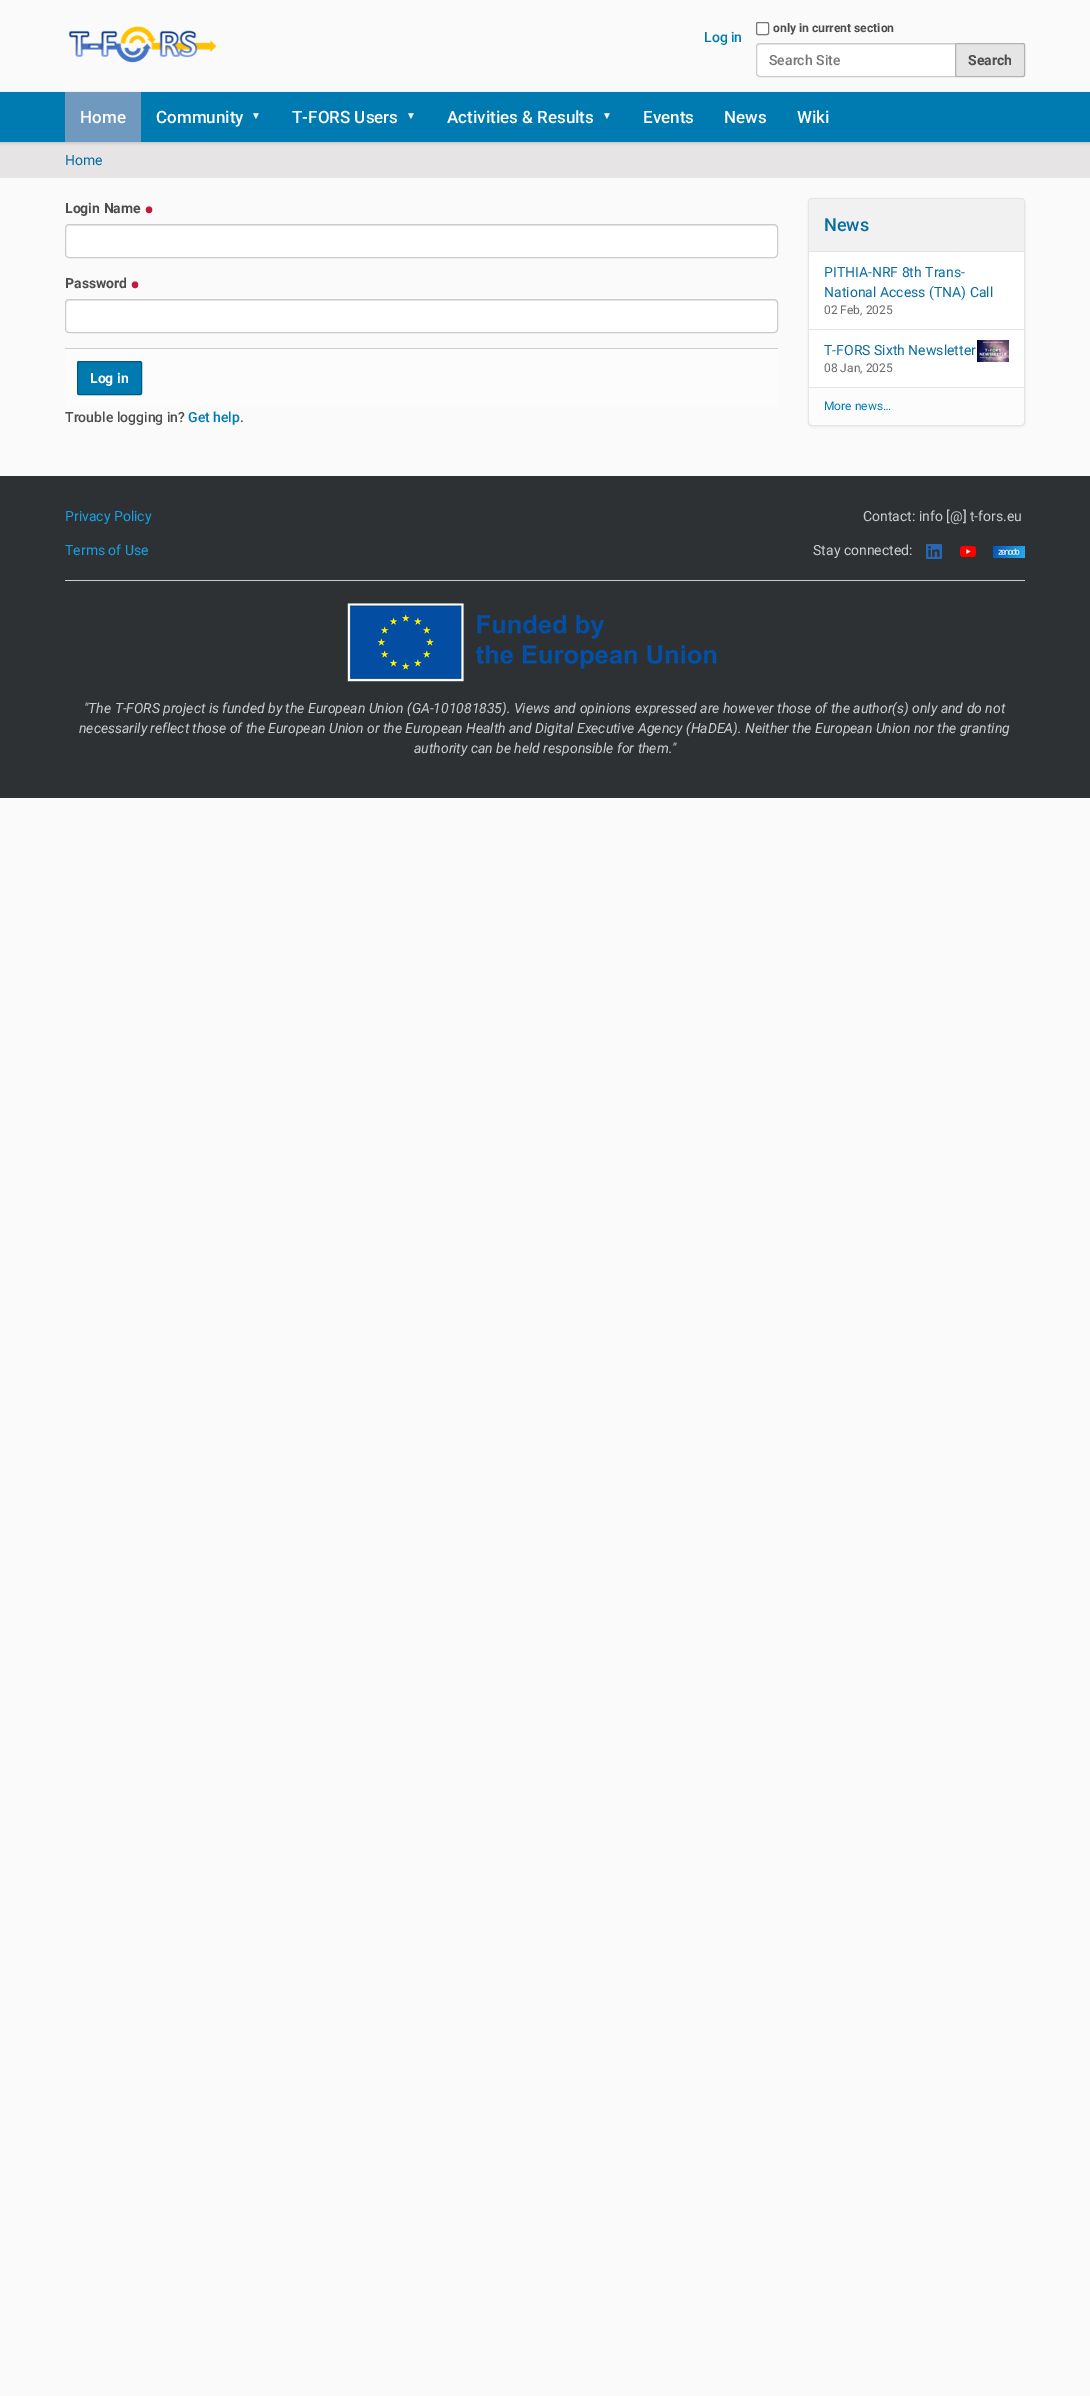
%!PS
<< /PageSize [1090 2396] /PageUsesTransparency true >> setpagedevice
/rgb { 3 { 255 div 3 1 roll } repeat setrgbcolor } def
/font { [ exch dup neg 0 0 3 -1 roll 0 0 ] selectfont } def
/text { moveto show } def
/alpha { dup .setfillconstantalpha .setstrokeconstantalpha } def
/roundrect { 5 dict begin { /r /h /w /y /x } { exch def } forall
  x r add y moveto x w add y 2 copy h add r arct x w add y h add x 1 index r arct
  x y h add x y r arct x y 2 copy exch w add exch r arct closepath end } def
/shadow { 12 dict begin { /a /b /q /h /w /y /x } { exch def } forall gsave /was 0 def
  9 -2 -9 { dup b mul 4 div /e exch def 1 sub .425 mul 2.718 exch exp 1 add a .99 .min exch div /now exch def
    1 1 now sub 1 was sub div sub alpha /was now def
    w h .min e 2 mul add 0 gt { x e sub y e sub w e 2 mul add h e 2 mul add
      q e add b .6 mul add w h .min 2 div e add .min 0 .max roundrect fill } if } for grestore end } def
/picture { 5 dict begin { /h /w /y /x /name } { exch def } forall
  gsave x y translate w h scale
  w h 8 [w 0 0 h 0 0] name (r) file false 3 colorimage grestore end } def
0 .pushpdf14devicefilter
0 2396 translate 1 -1 scale
4 setmiterlimit
250 250 250 rgb
0 0 1090 2396 rectfill
(img_01.rgb) 68 26 149 37 picture
255 255 255 rgb
756.5 22.5 12 12 1.5 roundrect gsave fill grestore
118 118 118 rgb
stroke
255 255 255 rgb
760 43 moveto 196 0 rlineto 0 34 rlineto -196 0 rlineto -2 0 -4 -2 -4 -4 rcurveto 0 -26 rlineto 0 -2 2 -4 4 -4 rcurveto closepath fill
236 236 236 rgb
760 45 moveto 195 0 rlineto 0 -1 rlineto -195 0 rlineto -2 0 -3 2 -3 4 rcurveto 0 -2 1 -3 3 -3 rcurveto closepath fill
204 204 204 rgb
760 43.5 moveto 195.5 0 rlineto 0 33 rlineto -195.5 0 rlineto -2 0 -3.5 -1.5 -3.5 -3.5 rcurveto 0 -26 rlineto 0 -2 1.5 -3.5 3.5 -3.5 rcurveto closepath stroke
229 229 229 rgb
955.5 43.5 69 33 1.5 roundrect gsave fill grestore
178 178 178 rgb
stroke
230 228 228 rgb
0 142 1090 36 rectfill
0 0 0 rgb
0 93 1090 50 0 1.5 0.17 shadow
0 123 177 rgb
0 92 1090 50 rectfill
112 153 191 rgb
65 92 76 50 rectfill
255 255 255 rgb
65 224 713 34 4 roundrect fill
236 236 236 rgb
69 226 moveto 705 0 rlineto 2 0 3 1 3 3 rcurveto 0 -2 -1 -4 -3 -4 rcurveto -705 0 rlineto -2 0 -3 2 -3 4 rcurveto 0 -2 1 -3 3 -3 rcurveto closepath fill
204 204 204 rgb
65.5 224.5 712 33 3.5 roundrect stroke
255 255 255 rgb
65 299 713 34 4 roundrect fill
236 236 236 rgb
69 301 moveto 705 0 rlineto 2 0 3 1 3 3 rcurveto 0 -2 -1 -4 -3 -4 rcurveto -705 0 rlineto -2 0 -3 2 -3 4 rcurveto 0 -2 1 -3 3 -3 rcurveto closepath fill
204 204 204 rgb
65.5 299.5 712 33 3.5 roundrect stroke
252 252 253 rgb
65 349 713 58 rectfill
204 204 204 rgb
65 348 713 1 rectfill
0 123 177 rgb
77.5 361.5 64 33 1.5 roundrect gsave fill grestore
0 88 126 rgb
stroke
0 0 0 rgb
808 199 217 228 4 1.5 0.05 shadow
229 229 229 rgb
808.5 198.5 216 227 3.5 roundrect stroke
242 241 241 rgb
813 199 moveto 207 0 rlineto 2 0 4 2 4 4 rcurveto 0 48 rlineto -215 0 rlineto 0 -48 rlineto 0 -2 2 -4 4 -4 rcurveto closepath fill
255 255 255 rgb
809 252 215 135 rectfill
229 229 229 rgb
809 251 215 1 rectfill
809 329 215 1 rectfill
(img_02.rgb) 977 340 32 22 picture
252 252 253 rgb
809 387 moveto 215 0 rlineto 0 34 rlineto 0 2 -2 4 -4 4 rcurveto -207 0 rlineto -2 0 -4 -2 -4 -4 rcurveto closepath fill
229 229 229 rgb
809 387 215 1 rectfill
46 49 51 rgb
0 476 1090 322 rectfill
(img_03.rgb) 926 544 16 15 picture
(img_04.rgb) 960 546 16 11 picture
(img_05.rgb) 993 546 32 12 picture
204 204 204 rgb
65 580 960 1 rectfill
(img_06.rgb) 347 603 370 79 picture
/Roboto-Medium 14 font
0 123 177 rgb
(Log in) 704 42 text
/Roboto-Bold 12.1 font
77 77 77 rgb
(only in current section) 773 32 text
/Roboto-Medium 14 font
119 119 119 rgb
(Search Site) 769 65 text
/Roboto-Bold 14 font
77 77 77 rgb
(Search) 968 65 text
/Roboto-Medium 17 font
255 255 255 rgb
(Home) 80 123 text
(Community) 156 123 text
/LiberationSans-Bold 10 font
(▼) 251 119 text
/Roboto-Medium 17 font
(T-FORS Users) 292 123 text
/LiberationSans-Bold 10 font
(▼) 406 119 text
/Roboto-Medium 17 font
(Activities & Results) 447 123 text
/LiberationSans-Bold 10 font
(▼) 602 119 text
/Roboto-Medium 17 font
(Events) 643 123 text
(News) 724 123 text
(Wiki) 797 123 text
/Roboto-Regular 14 font
8 108 163 rgb
(Home) 65 165 text
/Roboto-Bold 14 font
77 77 77 rgb
(Login Name) 65 213 text
/Roboto-Bold 28 font
196 24 60 rgb
(•) 144 220 text
/Roboto-Bold 14 font
77 77 77 rgb
(Password) 65 288 text
/Roboto-Bold 28 font
196 24 60 rgb
(•) 130 295 text
/Roboto-Bold 14 font
255 255 255 rgb
(Log in) 90 383 text
/Roboto-Medium 14 font
77 77 77 rgb
(Trouble logging in?) 65 422 text
0 123 177 rgb
(Get help) 188 422 text
77 77 77 rgb
(.) 240 422 text
/Roboto-Medium 18 font
8 108 163 rgb
(News) 824 231 text
/Roboto-Regular 14 font
(PITHIA-NRF 8th Trans-) 824 277 text
(National Access \(TNA\) Call) 824 297 text
/Roboto-Regular 12 font
105 105 105 rgb
(02 Feb, 2025) 824 314 text
/Roboto-Regular 14 font
8 108 163 rgb
(T-FORS Sixth Newsletter) 824 355 text
/Roboto-Regular 12 font
105 105 105 rgb
(08 Jan, 2025) 824 372 text
0 123 177 rgb
(More news…) 824 410 text
/Roboto-Regular 14 font
22 161 227 rgb
(Privacy Policy) 65 521 text
(Terms of Use) 65 555 text
204 204 204 rgb
(Contact: info [@] t-fors.eu) 863 521 text
(Stay connected:) 813 555 text
/Roboto-Italic 14 font
("The T-FORS project is funded by the European Union \(GA-101081835\). Views and opinions expressed are however those of the author\(s\) only and do not) 84 713 text
(necessarily reflect those of the European Union or the European Health and Digital Executive Agency \(HaDEA\). Neither the European Union nor the granting) 79 733 text
(authority can be held responsible for them.") 414 753 text
.poppdf14devicefilter showpage
